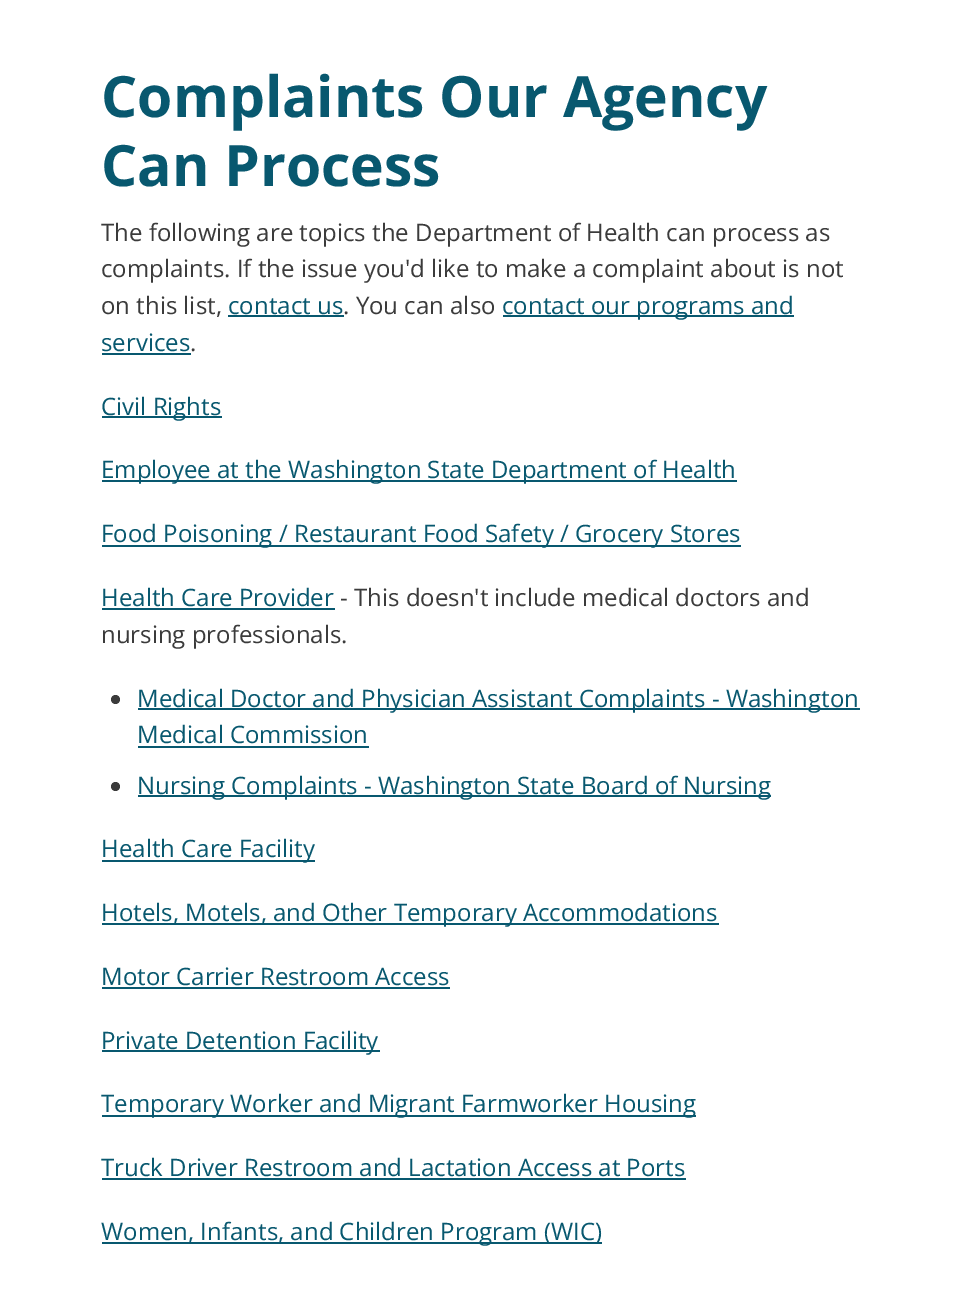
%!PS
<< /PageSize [964 1314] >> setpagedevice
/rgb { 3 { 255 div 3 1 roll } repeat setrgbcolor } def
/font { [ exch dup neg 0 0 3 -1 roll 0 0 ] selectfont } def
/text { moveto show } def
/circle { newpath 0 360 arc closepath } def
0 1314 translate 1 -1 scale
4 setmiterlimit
255 255 255 rgb
0 0 964 1314 rectfill
8 88 111 rgb
228 315 116 2 rectfill
503 315 291 2 rectfill
102 353 89 2 rectfill
102 416 120 2 rectfill
102 480 635 2 rectfill
102 545 639 2 rectfill
102 608 233 2 rectfill
59 59 59 rgb
115.5 699.5 4.5 circle fill
8 88 111 rgb
138 708 722 2 rectfill
138 746 231 2 rectfill
59 59 59 rgb
115.5 786.5 4.5 circle fill
8 88 111 rgb
138 795 633 2 rectfill
102 860 213 2 rectfill
102 923 617 2 rectfill
102 987 348 2 rectfill
102 1050 278 2 rectfill
102 1115 594 2 rectfill
102 1178 584 2 rectfill
102 1242 500 2 rectfill
/OpenSans-Bold 57 font
(Complaints Our Agency) 101 117 text
(Can Process) 101 186 text
/OpenSans-Regular 24 font
59 59 59 rgb
(The following are topics the Department of Health can process as) 101 241 text
(complaints. If the issue you'd like to make a complaint about is not) 101 277 text
(on this list,) 101 314 text
8 88 111 rgb
(contact us) 228 314 text
59 59 59 rgb
(. You can also) 343 314 text
8 88 111 rgb
(contact our programs and) 502 314 text
(services) 101 351 text
59 59 59 rgb
(.) 190 351 text
8 88 111 rgb
(Civil Rights) 101 415 text
(Employee at the Washington State Department of Health) 101 478 text
(Food Poisoning / Restaurant Food Safety / Grocery Stores) 101 542 text
(Health Care Provider) 101 606 text
59 59 59 rgb
(- This doesn't include medical doctors and) 340 606 text
(nursing professionals.) 101 643 text
8 88 111 rgb
(Medical Doctor and Physician Assistant Complaints - Washington) 137 707 text
(Medical Commission) 137 743 text
(Nursing Complaints - Washington State Board of Nursing) 137 794 text
(Health Care Facility) 101 857 text
(Hotels, Motels, and Other Temporary Accommodations) 101 921 text
(Motor Carrier Restroom Access) 101 985 text
(Private Detention Facility) 101 1049 text
(Temporary Worker and Migrant Farmworker Housing) 101 1112 text
(Truck Driver Restroom and Lactation Access at Ports) 101 1176 text
(Women, Infants, and Children Program \(WIC\)) 101 1240 text
showpage
